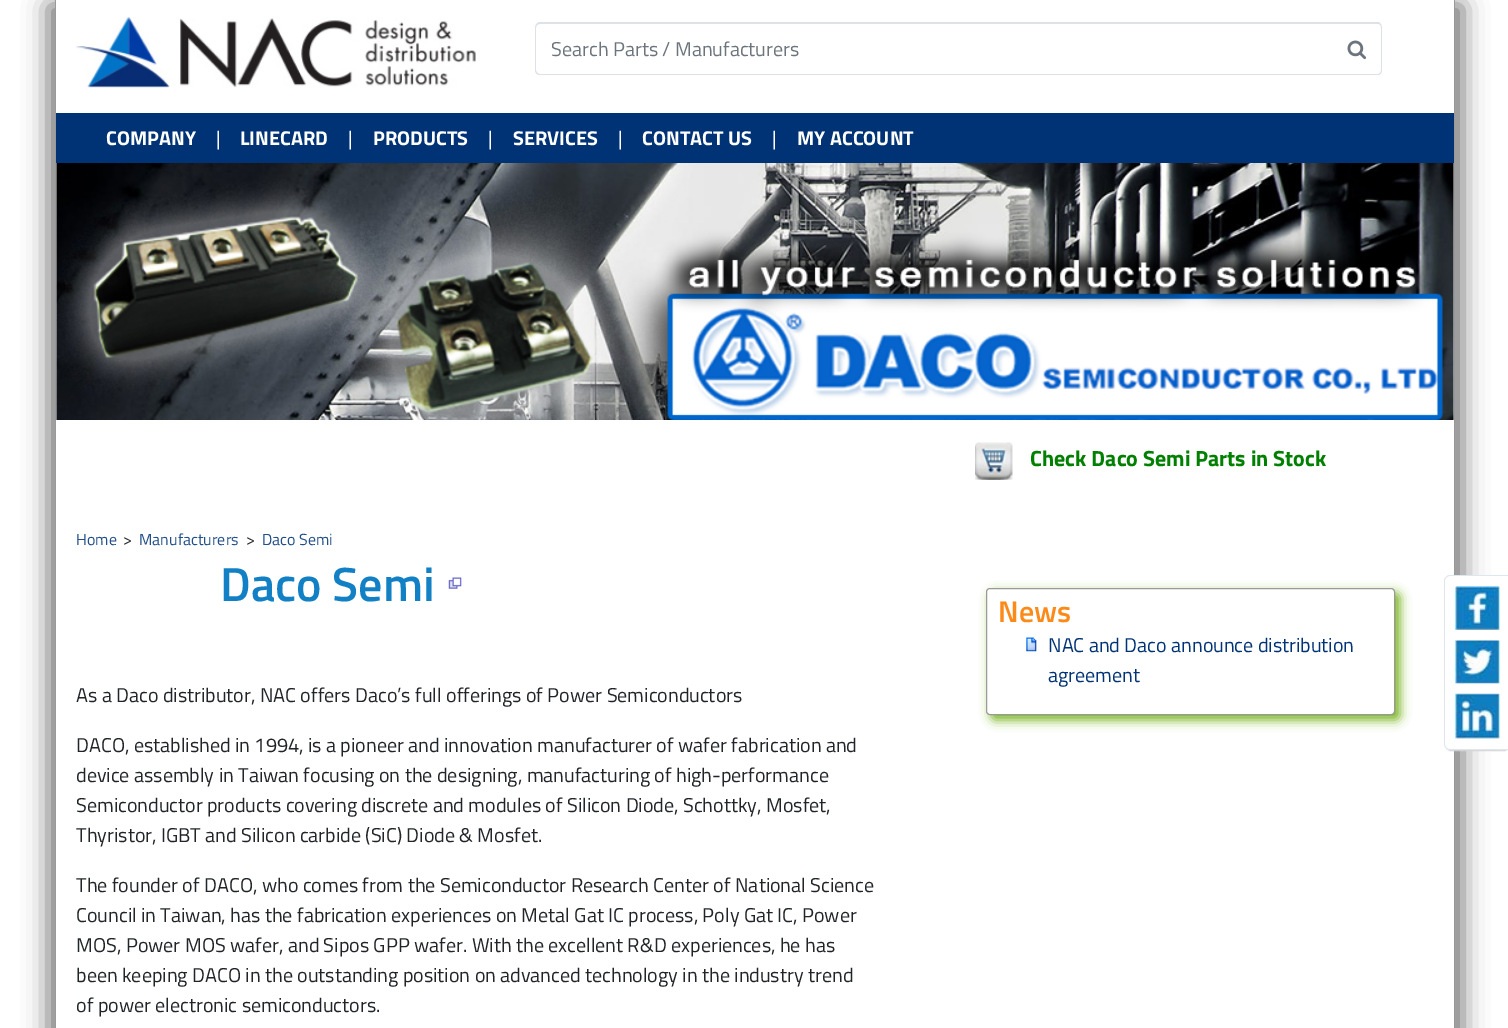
%!PS
<< /PageSize [1508 1028] /PageUsesTransparency true >> setpagedevice
/rgb { 3 { 255 div 3 1 roll } repeat setrgbcolor } def
/font { [ exch dup neg 0 0 3 -1 roll 0 0 ] selectfont } def
/text { moveto show } def
/alpha { dup .setfillconstantalpha .setstrokeconstantalpha } def
/roundrect { 5 dict begin { /r /h /w /y /x } { exch def } forall
  x r add y moveto x w add y 2 copy h add r arct x w add y h add x 1 index r arct
  x y h add x y r arct x y 2 copy exch w add exch r arct closepath end } def
/shadow { 12 dict begin { /a /b /q /h /w /y /x } { exch def } forall gsave /was 0 def
  9 -2 -9 { dup b mul 4 div /e exch def 1 sub .425 mul 2.718 exch exp 1 add a .99 .min exch div /now exch def
    1 1 now sub 1 was sub div sub alpha /was now def
    w h .min e 2 mul add 0 gt { x e sub y e sub w e 2 mul add h e 2 mul add
      q e add b .6 mul add w h .min 2 div e add .min 0 .max roundrect fill } if } for grestore end } def
/picture { 5 dict begin { /h /w /y /x /name } { exch def } forall
  gsave x y translate w h scale
  w h 8 [w 0 0 h 0 0] name (r) file false 3 colorimage grestore end } def
0 .pushpdf14devicefilter
0 1028 translate 1 -1 scale
4 setmiterlimit
255 255 255 rgb
0 0 1508 1028 rectfill
gsave
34 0 moveto 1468 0 rlineto 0 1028 rlineto -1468 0 rlineto closepath 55 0 moveto 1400 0 rlineto 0 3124 rlineto -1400 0 rlineto closepath eoclip newpath
119 119 119 rgb
73 5 1390 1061 0 12.5 1 shadow
grestore
gsave
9 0 moveto 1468 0 rlineto 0 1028 rlineto -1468 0 rlineto closepath 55 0 moveto 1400 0 rlineto 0 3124 rlineto -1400 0 rlineto closepath eoclip newpath
119 119 119 rgb
48 5 1390 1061 0 12.5 1 shadow
grestore
153 153 153 rgb
1454 0 1 1028 rectfill
55 0 1 1028 rectfill
222 226 230 rgb
540 22 moveto 794 0 rlineto 0 53 rlineto -794 0 rlineto -3 0 -5 -2 -5 -5 rcurveto 0 -42 rlineto 0 -3 2 -6 5 -6 rcurveto closepath 540 24 moveto 794 0 rlineto 0 50 rlineto -794 0 rlineto -2 0 -4 -2 -4 -4 rcurveto 0 -42 rlineto 0 -3 2 -4 4 -4 rcurveto closepath eofill
1332 22 moveto 46 0 rlineto 2 0 4 3 4 6 rcurveto 0 42 rlineto 0 3 -2 5 -4 5 rcurveto -46 0 rlineto closepath 1332 24 moveto 46 0 rlineto 2 0 3 1 3 4 rcurveto 0 42 rlineto 0 2 -1 4 -3 4 rcurveto -46 0 rlineto closepath eofill
(img_01.rgb) 1347 40 20 20 picture
(img_02.rgb) 76 17 400 71 picture
0 51 117 rgb
56 113 1398 50 rectfill
(img_03.rgb) 56 163 1398 257 picture
(img_04.rgb) 975 442 38 38 picture
(img_05.rgb) 448 577 14 12 picture
gsave
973 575 moveto 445 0 rlineto 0 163 rlineto -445 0 rlineto closepath 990 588 moveto 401 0 rlineto 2 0 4 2 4 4 rcurveto 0 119 rlineto 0 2 -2 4 -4 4 rcurveto -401 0 rlineto -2 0 -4 -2 -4 -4 rcurveto 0 -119 rlineto 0 -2 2 -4 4 -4 rcurveto closepath eoclip newpath
117 178 25 rgb
991 593 409 127 4 5.5 1 shadow
grestore
153 153 153 rgb
986.5 588.5 408 126 3.5 roundrect stroke
(img_06.rgb) 1026 637 11 15 picture
212 212 212 rgb
1445 576 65 175 6 0.5 1 shadow
255 255 255 rgb
1450 575 moveto 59 0 rlineto 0 175 rlineto -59 0 rlineto -3.5 0 -6 -2.5 -6 -6 rcurveto 0 -163 rlineto 0 -3.5 2.5 -6 6 -6 rcurveto closepath fill
224 230 238 rgb
1450 575 moveto 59 0 rlineto 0 175 rlineto -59 0 rlineto -3 0 -6 -3 -6 -6 rcurveto 0 -163 rlineto 0 -3 3 -6 6 -6 rcurveto closepath 1450 576 moveto 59 0 rlineto 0 173 rlineto -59 0 rlineto -3 0 -5 -2 -5 -5 rcurveto 0 -163 rlineto 0 -3 2 -5 5 -5 rcurveto closepath eofill
(img_07.rgb) 1455 586 45 44 picture
(img_08.rgb) 1455 640 45 44 picture
(img_09.rgb) 1455 693 45 46 picture
/TitilliumWeb-Regular 20 font
108 117 125 rgb
(Search Parts / Manufacturers) 551 56 text
/TitilliumWeb-Bold 20 font
255 255 255 rgb
(COMPANY) 106 145 text
/TitilliumWeb-Regular 20 font
(|) 216 145 text
/TitilliumWeb-Bold 20 font
(LINECARD) 240 145 text
/TitilliumWeb-Regular 20 font
(|) 348 145 text
/TitilliumWeb-Bold 20 font
(PRODUCTS) 373 145 text
/TitilliumWeb-Regular 20 font
(|) 488 145 text
/TitilliumWeb-Bold 20 font
(SERVICES) 513 145 text
/TitilliumWeb-Regular 20 font
(|) 618 145 text
/TitilliumWeb-Bold 20 font
(CONTACT US) 642 145 text
/TitilliumWeb-Regular 20 font
(|) 772 145 text
/TitilliumWeb-Bold 20 font
(MY ACCOUNT) 797 145 text
/TitilliumWeb-Bold 22 font
0 128 0 rgb
(Check Daco Semi Parts in Stock) 1030 466 text
/TitilliumWeb-Regular 16 font
34 79 136 rgb
(Home) 76 545 text
33 37 41 rgb
(>) 123 545 text
34 79 136 rgb
(Manufacturers) 139 545 text
33 37 41 rgb
(>) 246 545 text
34 79 136 rgb
(Daco Semi) 262 545 text
/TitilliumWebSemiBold-SemiBold 48 font
18 128 196 rgb
(Daco Semi) 220 601 text
/TitilliumWeb-Regular 20 font
33 37 41 rgb
(As a Daco distributor, NAC offers Daco’s full offerings of Power Semiconductors) 76 702 text
(DACO, established in 1994, is a pioneer and innovation manufacturer of wafer fabrication and) 76 752 text
(device assembly in Taiwan focusing on the designing, manufacturing of high-performance) 76 782 text
(Semiconductor products covering discrete and modules of Silicon Diode, Schottky, Mosfet,) 76 812 text
(Thyristor, IGBT and Silicon carbide \(SiC\) Diode & Mosfet.) 76 842 text
(The founder of DACO, who comes from the Semiconductor Research Center of National Science) 76 892 text
(Council in Taiwan, has the fabrication experiences on Metal Gat IC process, Poly Gat IC, Power) 76 922 text
(MOS, Power MOS wafer, and Sipos GPP wafer. With the excellent R&D experiences, he has) 76 952 text
(been keeping DACO in the outstanding position on advanced technology in the industry trend) 76 982 text
(of power electronic semiconductors.) 76 1012 text
/TitilliumWebSemiBold-SemiBold 30 font
252 138 25 rgb
(News) 998 622 text
/TitilliumWeb-Regular 20 font
0 51 117 rgb
(NAC and Daco announce distribution) 1048 652 text
(agreement) 1048 682 text
.poppdf14devicefilter showpage
